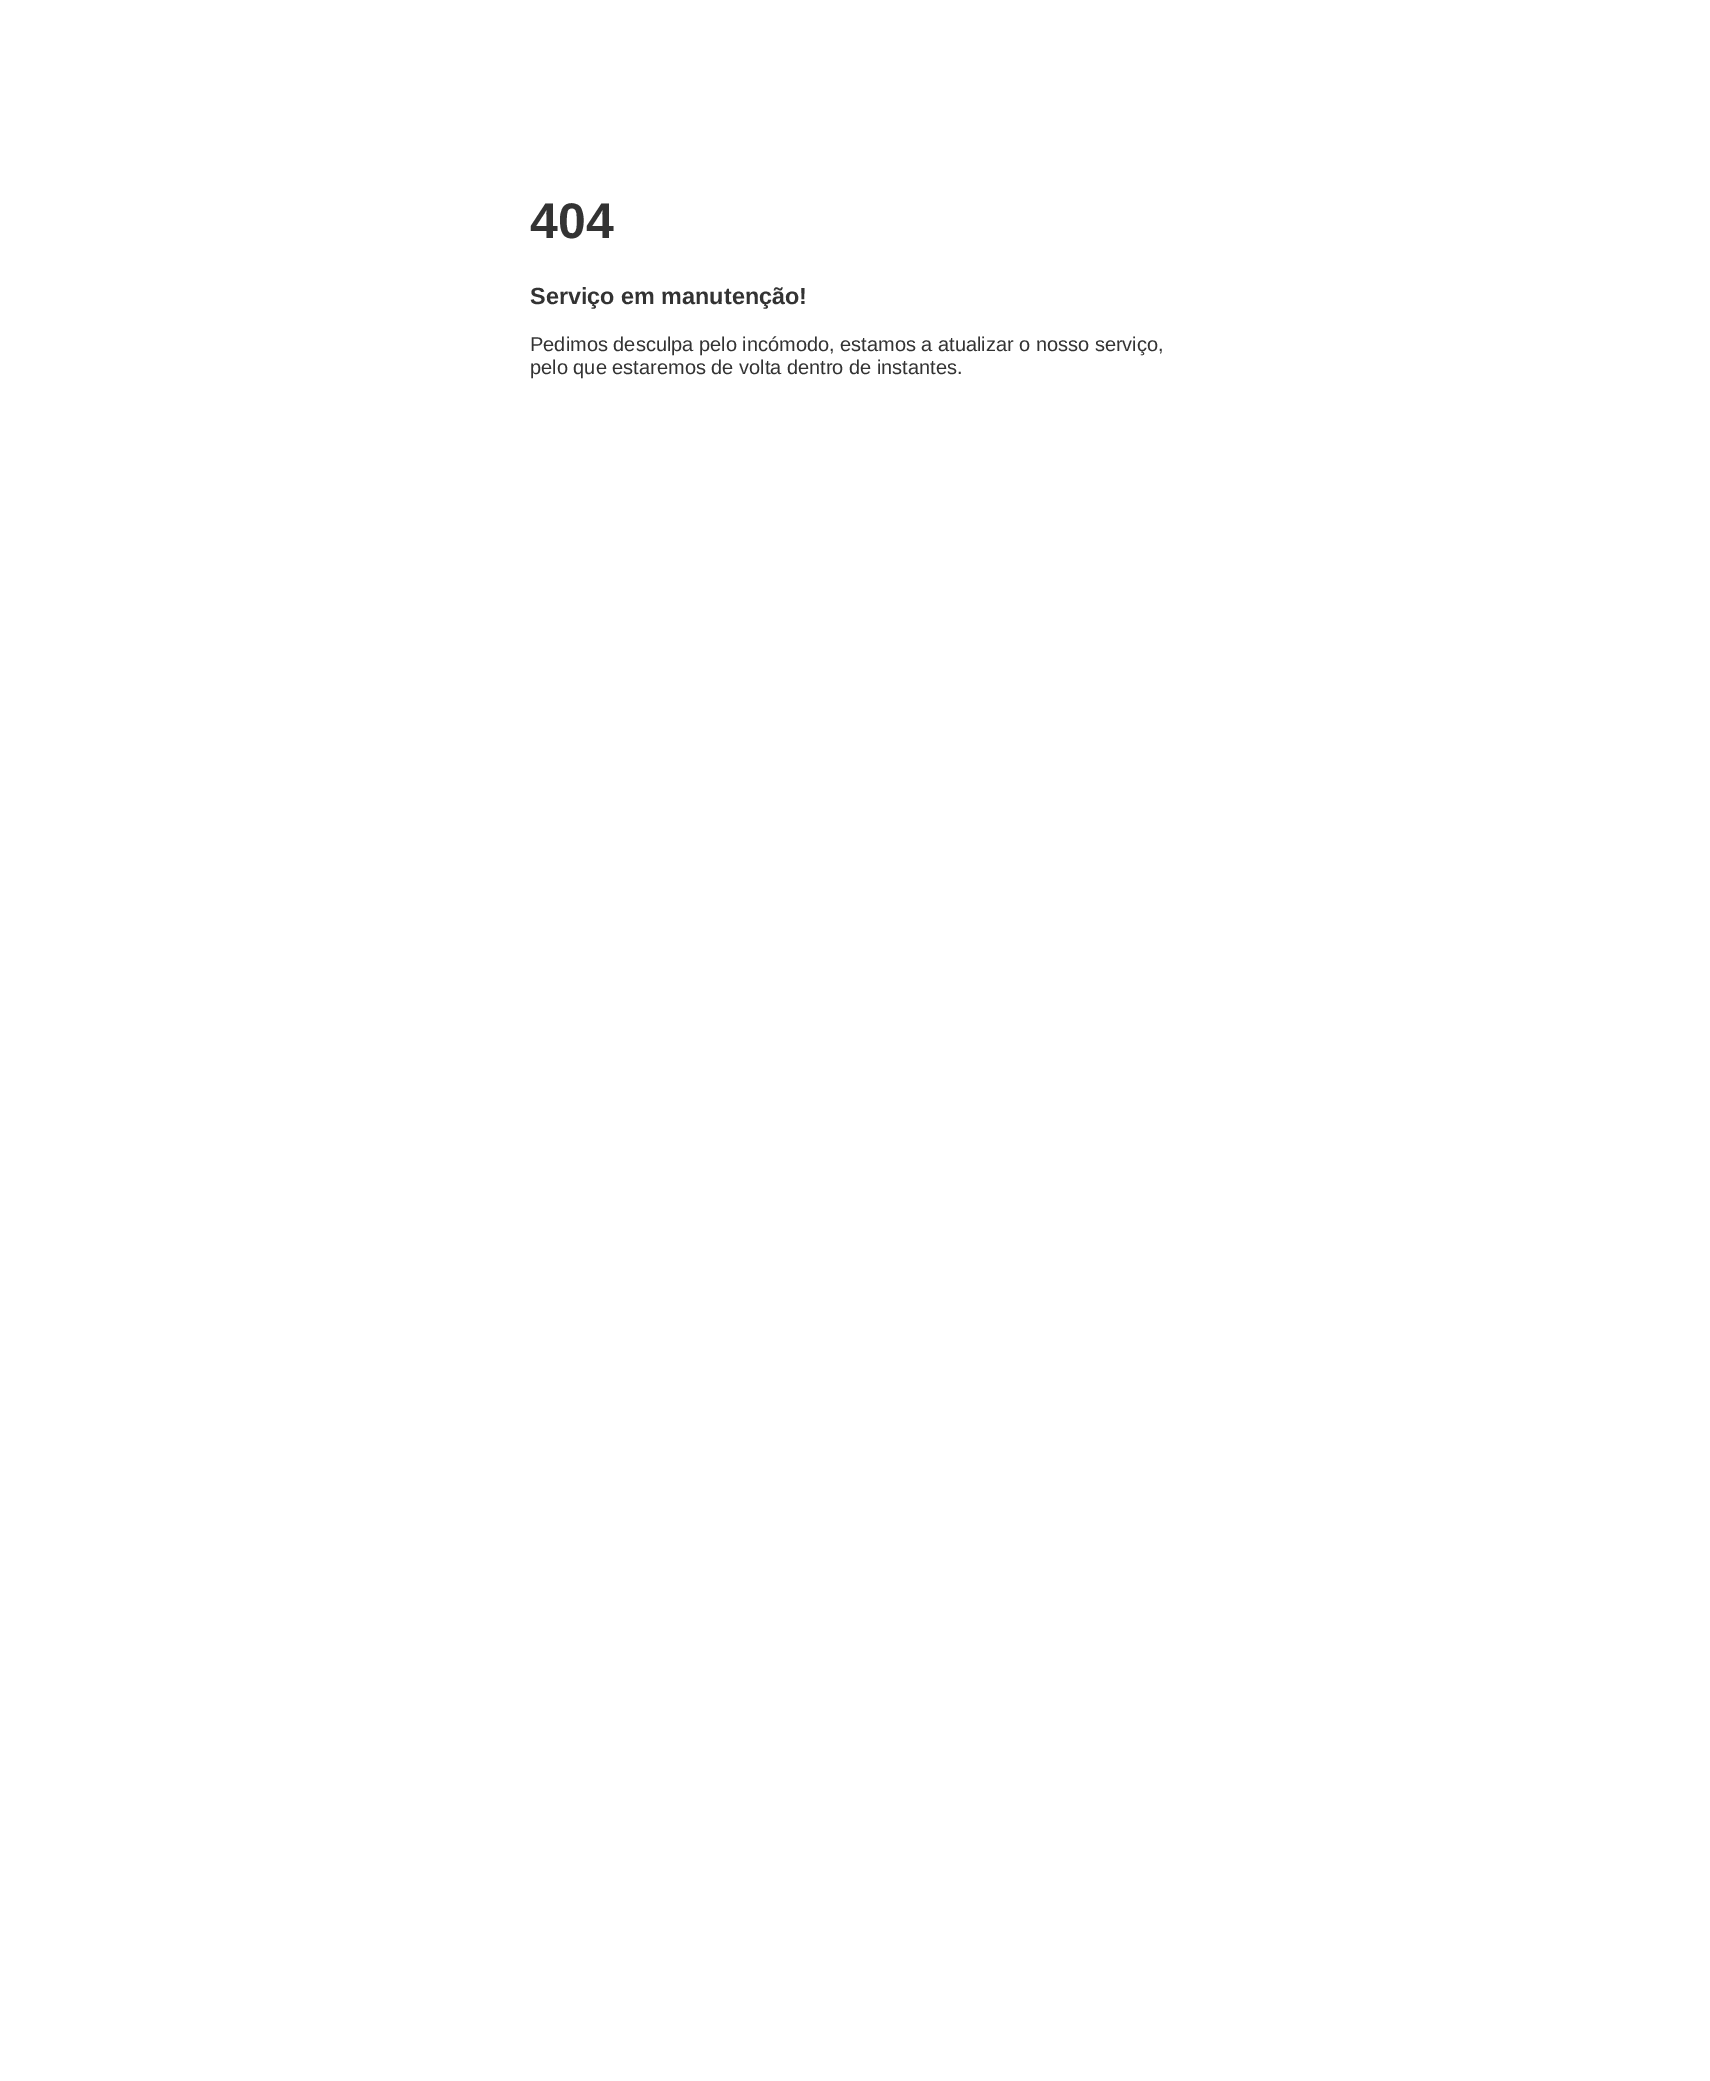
%!PS
<< /PageSize [1710 2081] >> setpagedevice
/rgb { 3 { 255 div 3 1 roll } repeat setrgbcolor } def
/font { [ exch dup neg 0 0 3 -1 roll 0 0 ] selectfont } def
/text { moveto show } def
0 2081 translate 1 -1 scale
4 setmiterlimit
255 255 255 rgb
0 0 1710 2081 rectfill
/LiberationSans-Bold 50 font
51 51 51 rgb
(404) 530 238 text
/LiberationSans-Bold 23.4 font
(Serviço em manutenção!) 530 304 text
/LiberationSans-Regular 20 font
(Pedimos desculpa pelo incómodo, estamos a atualizar o nosso serviço,) 530 351 text
(pelo que estaremos de volta dentro de instantes.) 530 374 text
showpage
